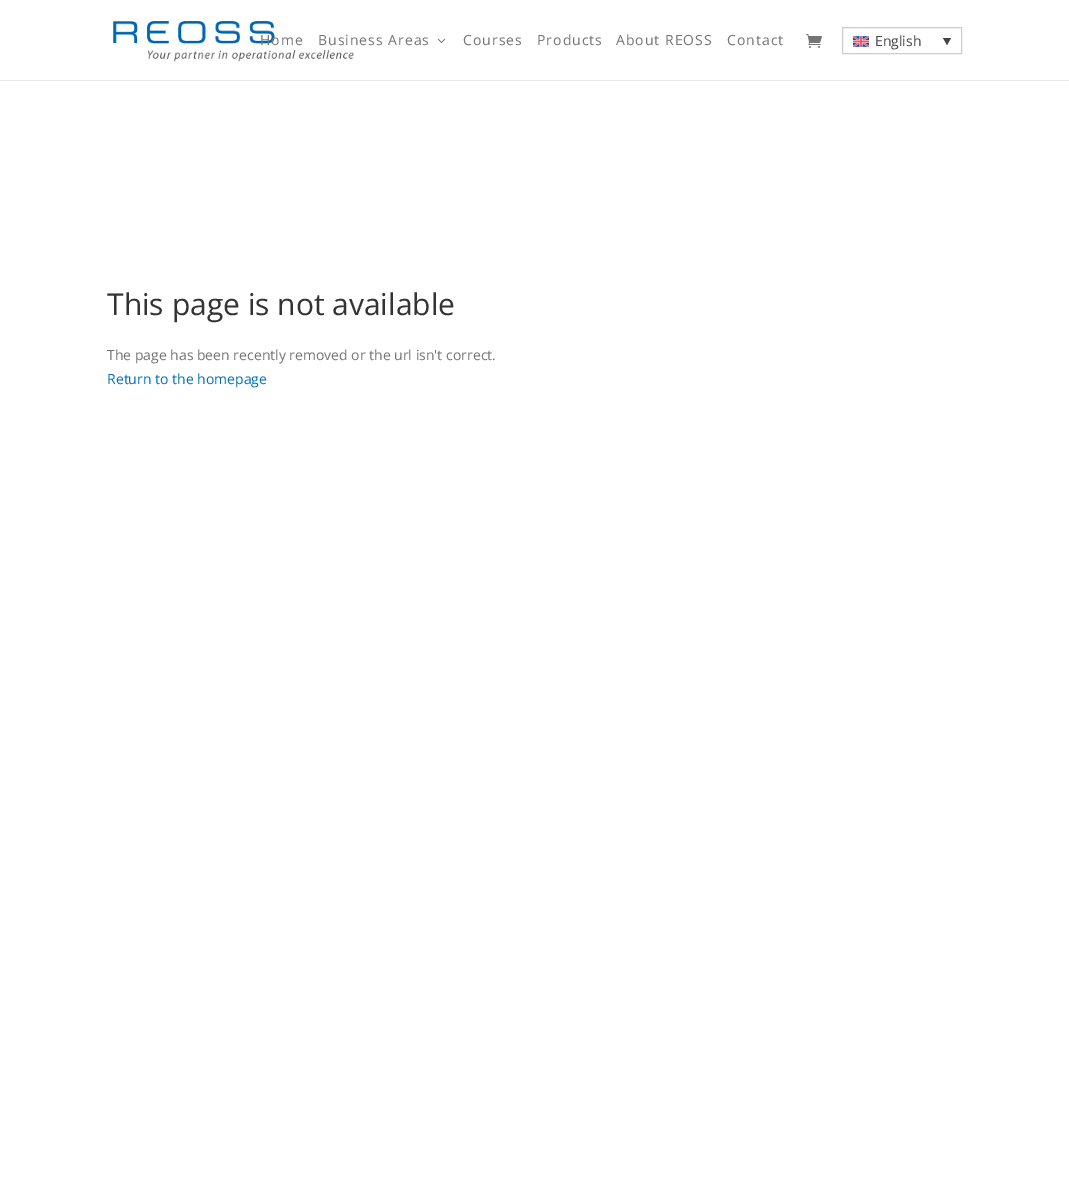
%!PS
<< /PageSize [1069 1199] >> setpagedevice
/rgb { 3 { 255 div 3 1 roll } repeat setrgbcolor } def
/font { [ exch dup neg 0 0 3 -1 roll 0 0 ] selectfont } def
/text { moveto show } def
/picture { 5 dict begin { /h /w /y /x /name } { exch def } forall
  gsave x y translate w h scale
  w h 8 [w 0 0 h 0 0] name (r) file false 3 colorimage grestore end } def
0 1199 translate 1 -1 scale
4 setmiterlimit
255 255 255 rgb
0 0 1069 1199 rectfill
230 230 230 rgb
0 80 1069 1 rectfill
(img_01.rgb) 111 18 243 44 picture
(img_02.rgb) 437 38 9 5 picture
(img_03.rgb) 806 34 16 14 picture
205 205 205 rgb
842.5 27.5 119 26 rectstroke
(img_04.rgb) 853 36 16 11 picture
68 68 68 rgb
943 38 moveto 8 0 rlineto -4 7 rlineto closepath fill
/OpenSans-Regular 14 font
116 116 118 rgb
260 45 moveto 1 0 (Home) ashow
318 45 moveto 1 0 (Business Areas) ashow
463 45 moveto 1 0 (Courses) ashow
537 45 moveto 1 0 (Products) ashow
616 45 moveto 1 0 (About REOSS) ashow
727 45 moveto 1 0 (Contact) ashow
68 68 68 rgb
(English) 875 46 text
/OpenSans-Regular 30 font
51 51 51 rgb
(This page is not available) 107 315 text
/OpenSans-Regular 14 font
116 116 118 rgb
(The page has been recently removed or the url isn't correct.) 107 360 text
0 113 185 rgb
(Return to the homepage) 107 384 text
showpage
